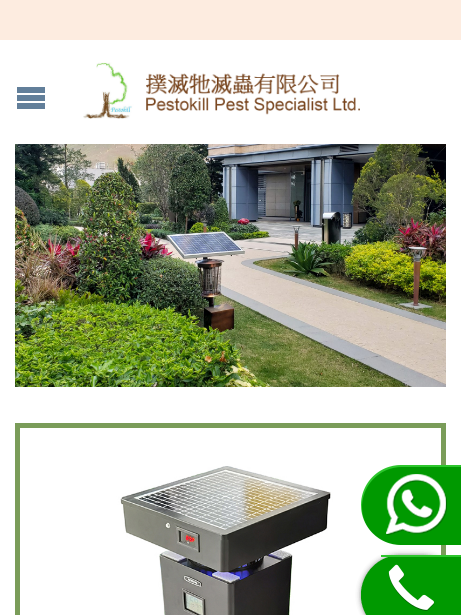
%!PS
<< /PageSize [461 615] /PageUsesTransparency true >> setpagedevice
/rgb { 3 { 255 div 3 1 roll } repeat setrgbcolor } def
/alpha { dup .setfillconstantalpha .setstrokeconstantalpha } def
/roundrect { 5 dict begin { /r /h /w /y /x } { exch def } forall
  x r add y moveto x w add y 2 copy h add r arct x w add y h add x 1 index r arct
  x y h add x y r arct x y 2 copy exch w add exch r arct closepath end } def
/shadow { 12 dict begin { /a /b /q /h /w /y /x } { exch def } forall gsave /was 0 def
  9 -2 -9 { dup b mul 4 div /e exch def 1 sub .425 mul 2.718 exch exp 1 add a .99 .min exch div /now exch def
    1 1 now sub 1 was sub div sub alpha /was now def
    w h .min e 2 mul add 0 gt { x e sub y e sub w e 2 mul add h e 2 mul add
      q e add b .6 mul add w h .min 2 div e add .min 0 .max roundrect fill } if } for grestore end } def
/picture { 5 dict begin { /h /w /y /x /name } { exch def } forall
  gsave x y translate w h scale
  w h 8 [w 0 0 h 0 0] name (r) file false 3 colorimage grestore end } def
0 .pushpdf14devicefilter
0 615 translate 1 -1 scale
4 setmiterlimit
255 255 255 rgb
0 0 461 615 rectfill
253 236 224 rgb
0 0 461 40 rectfill
(img_01.rgb) 17 87 28 22 picture
(img_02.rgb) 83 62 277 57 picture
(img_03.rgb) 15 144 431 243 picture
122 156 89 rgb
15 423 431 192 rectfill
(img_04.rgb) 20 428 421 187 picture
(img_05.rgb) 361 465 100 80 picture
136 136 136 rgb
361 555 100 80 40 2.5 1 shadow
0 153 0 rgb
401 555 moveto 60 0 rlineto 0 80 rlineto -60 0 rlineto -22 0 -40 -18 -40 -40 rcurveto 0 -22 18 -40 40 -40 rcurveto closepath fill
(img_06.rgb) 388 564 46 47 picture
45 198 45 rgb
381 555 80 2 rectfill
.poppdf14devicefilter showpage
